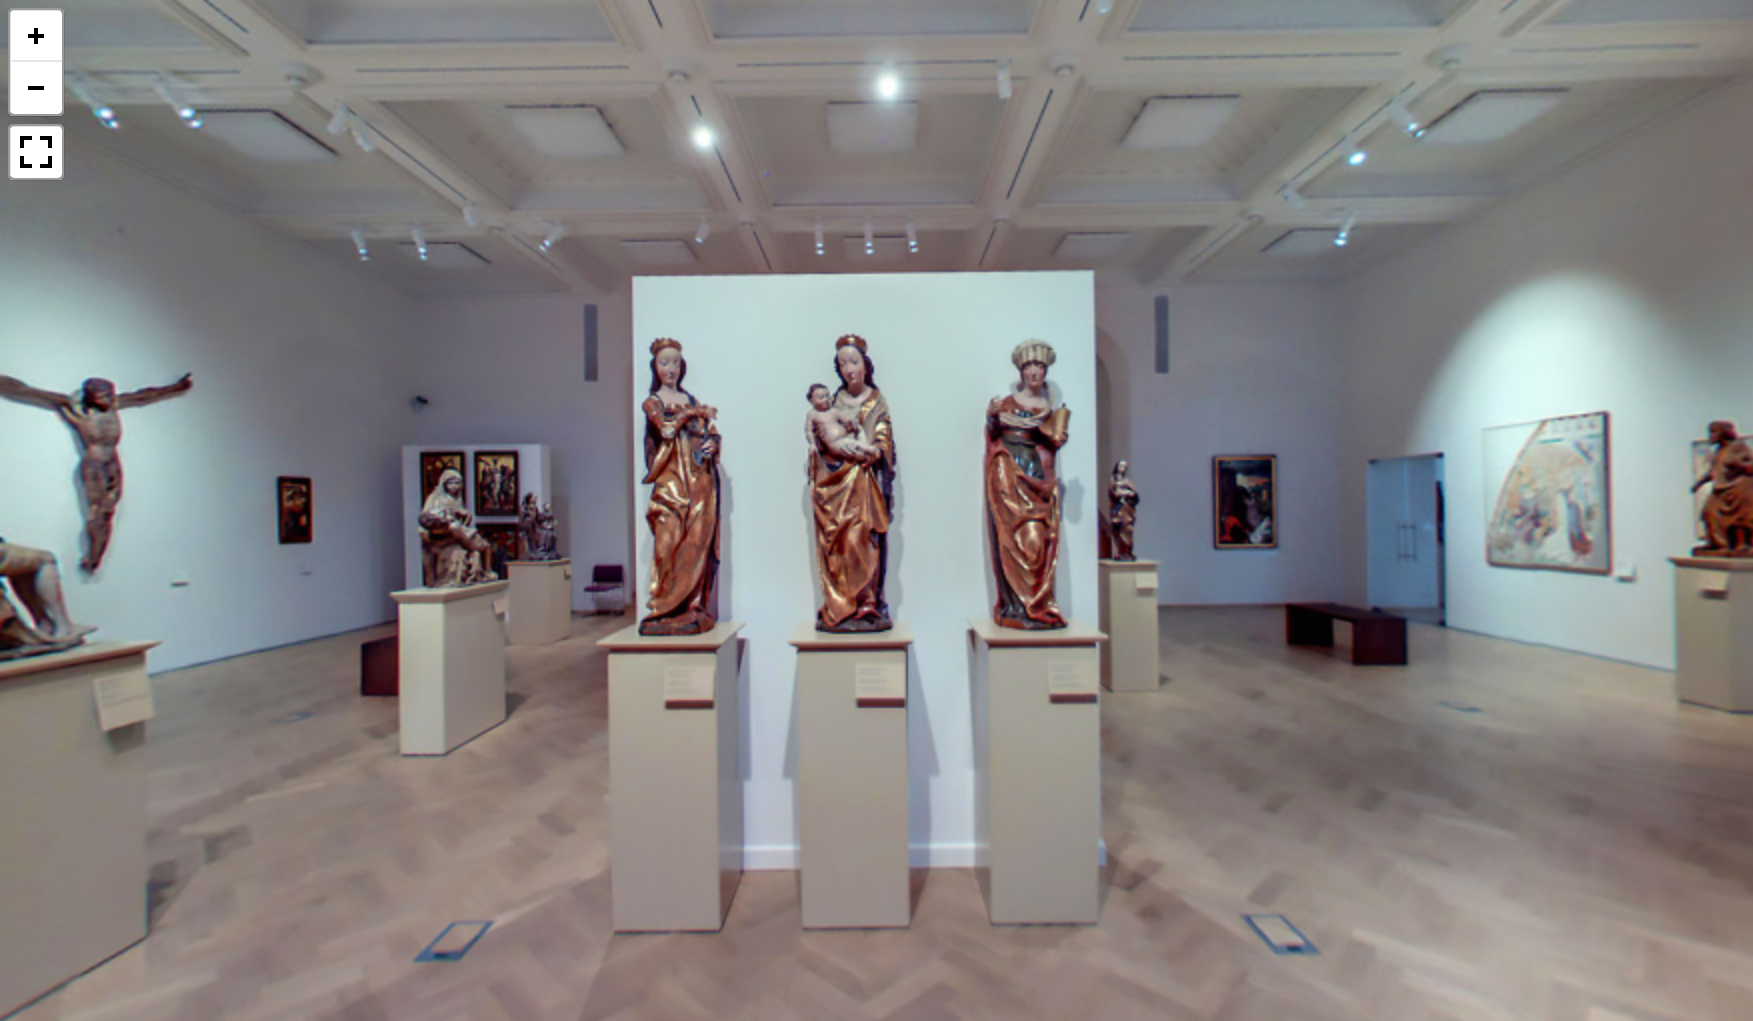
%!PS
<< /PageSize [1753 1021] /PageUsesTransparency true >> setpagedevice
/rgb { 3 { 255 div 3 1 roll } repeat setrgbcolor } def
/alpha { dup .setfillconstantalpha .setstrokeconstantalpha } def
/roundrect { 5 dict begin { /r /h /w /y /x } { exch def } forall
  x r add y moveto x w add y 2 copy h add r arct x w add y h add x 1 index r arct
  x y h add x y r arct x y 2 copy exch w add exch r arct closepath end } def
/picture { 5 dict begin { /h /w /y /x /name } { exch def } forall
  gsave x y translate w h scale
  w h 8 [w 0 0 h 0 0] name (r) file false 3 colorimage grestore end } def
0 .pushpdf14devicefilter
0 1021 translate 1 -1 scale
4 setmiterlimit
255 255 255 rgb
0 0 1753 1021 rectfill
(img_01.rgb) 0 0 1753 1021 picture
8 8 56 108 6 roundrect fill
0.4 alpha
0 0 0 rgb
2 setlinewidth
9 9 54 106 5 roundrect stroke
1 alpha
(img_02.rgb) 28 28 16 16 picture
28 86 16 4 rectfill
230 230 230 rgb
10 60 52 2 rectfill
255 255 255 rgb
8 124 56 56 6 roundrect fill
(img_03.rgb) 20 136 32 32 picture
0.4 alpha
0 0 0 rgb
9 125 54 54 5 roundrect stroke
.poppdf14devicefilter showpage
